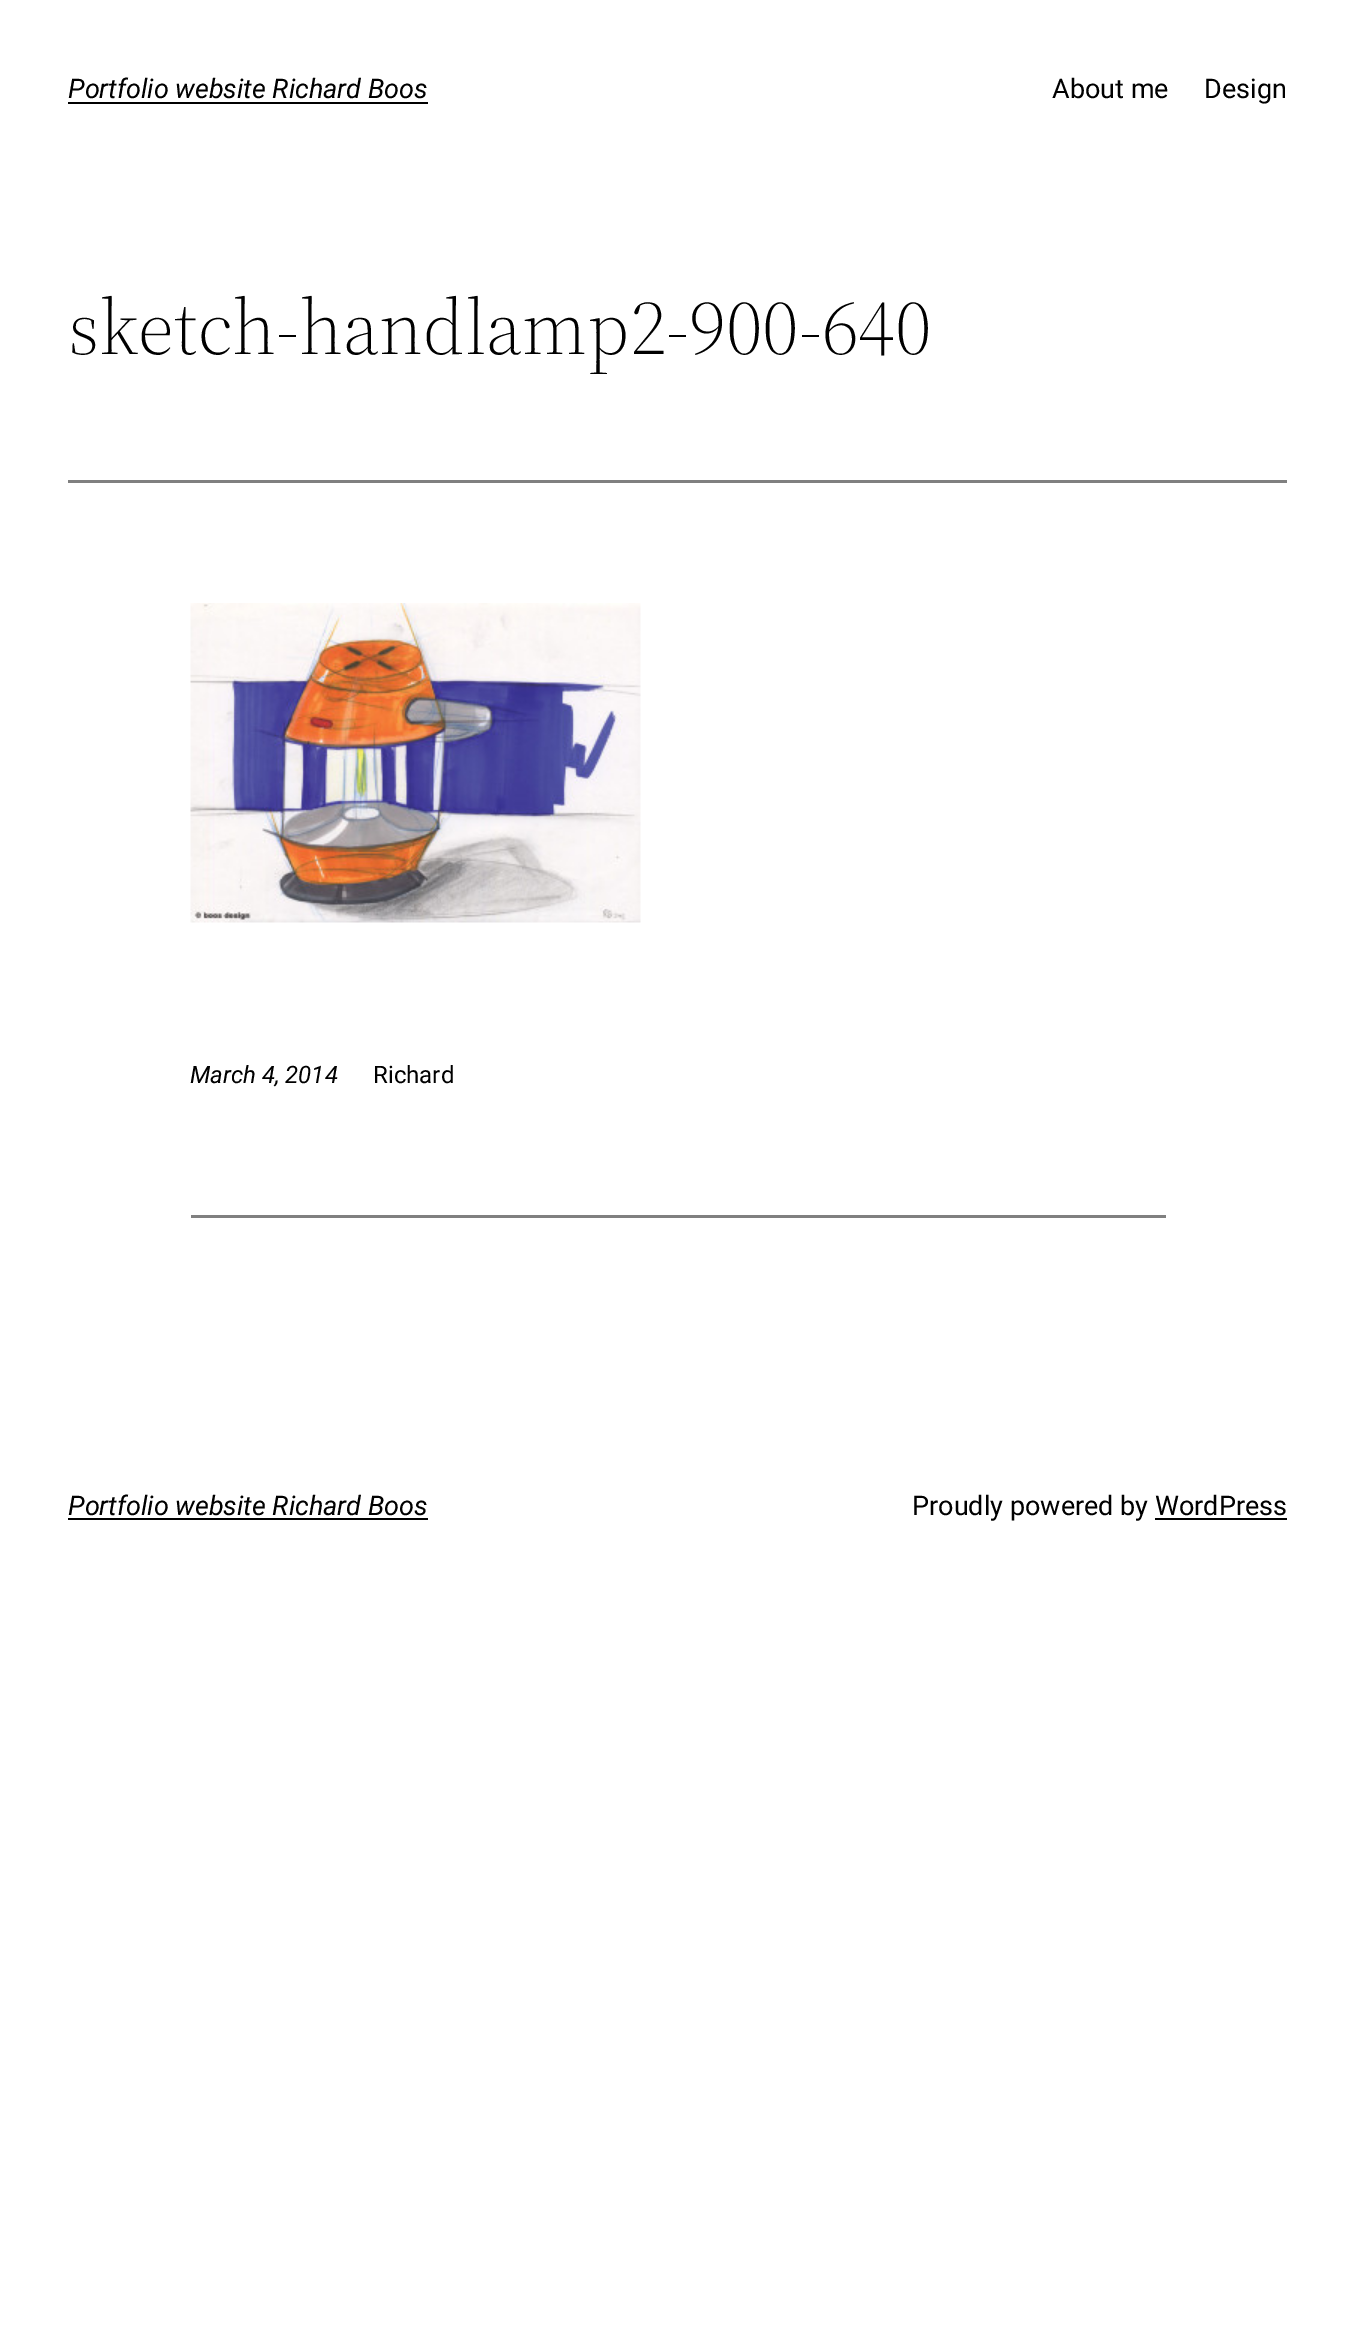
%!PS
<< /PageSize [1354 2332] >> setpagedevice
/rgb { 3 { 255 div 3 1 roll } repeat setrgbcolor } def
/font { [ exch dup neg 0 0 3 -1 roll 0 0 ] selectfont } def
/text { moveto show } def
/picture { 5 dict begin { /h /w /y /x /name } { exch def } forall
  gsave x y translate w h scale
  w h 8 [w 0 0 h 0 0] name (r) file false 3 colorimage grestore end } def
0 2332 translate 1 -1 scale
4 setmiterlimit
255 255 255 rgb
0 0 1354 2332 rectfill
0 0 0 rgb
68 102 360 2 rectfill
128 128 128 rgb
68 480 1219 3 rectfill
(img_01.rgb) 190 603 451 320 picture
191 1215 975 3 rectfill
0 0 0 rgb
68 1518 360 2 rectfill
1155 1518 132 2 rectfill
/Roboto-Italic 27 font
(Portfolio website Richard Boos) 68 98 text
/Roboto-Regular 27 font
(About me) 1052 98 text
(Design) 1204 98 text
/SourceSerif4-Light 78 font
(sketch-handlamp2-900-640) 68 354 text
/Roboto-Italic 24 font
(March 4, 2014) 190 1083 text
/Roboto-Regular 24 font
(Richard) 373 1083 text
/Roboto-Italic 27 font
(Portfolio website Richard Boos) 68 1515 text
/Roboto-Regular 27 font
(Proudly powered by WordPress) 912 1515 text
showpage
